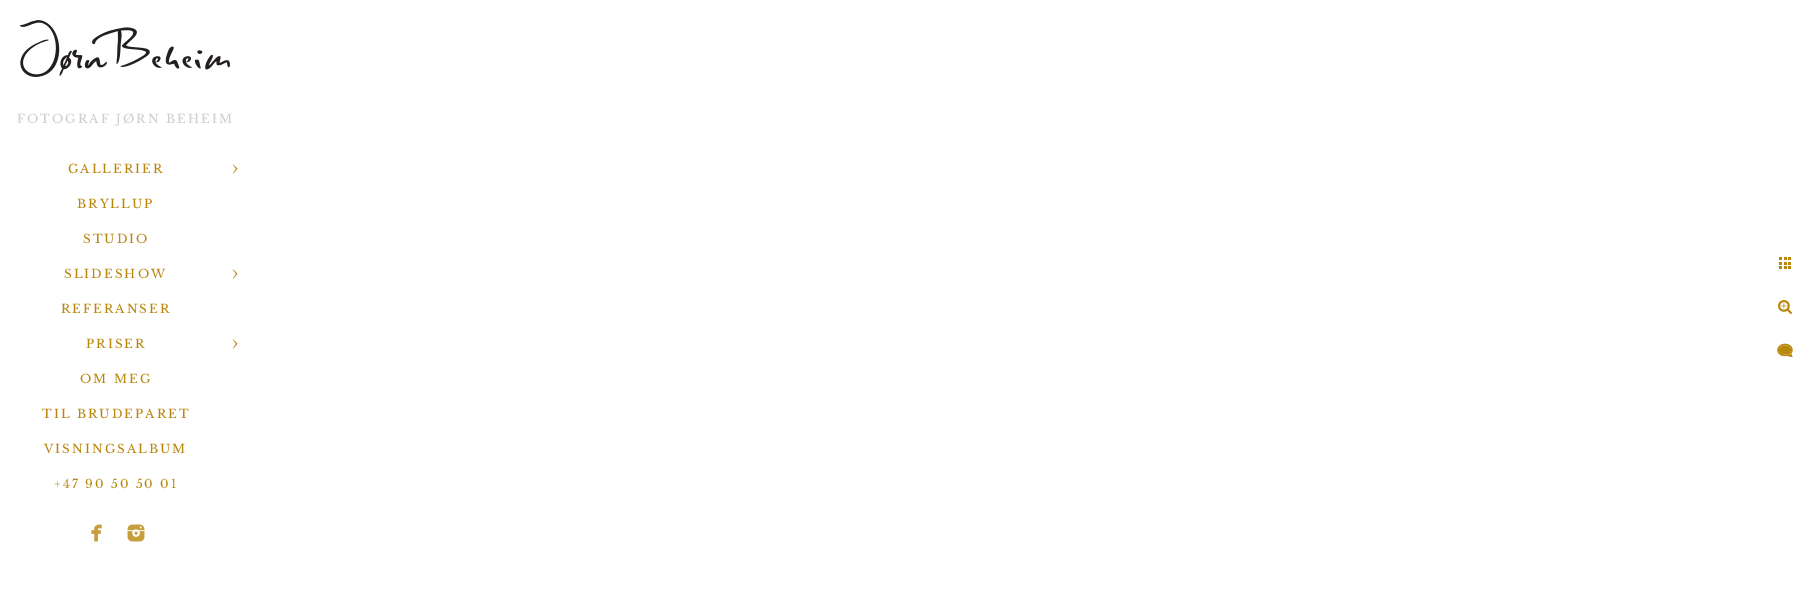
%!PS
<< /PageSize [1812 594] >> setpagedevice
/rgb { 3 { 255 div 3 1 roll } repeat setrgbcolor } def
/font { [ exch dup neg 0 0 3 -1 roll 0 0 ] selectfont } def
/picture { 5 dict begin { /h /w /y /x /name } { exch def } forall
  gsave x y translate w h scale
  w h 8 [w 0 0 h 0 0] name (r) file false 3 colorimage grestore end } def
0 594 translate 1 -1 scale
4 setmiterlimit
255 255 255 rgb
0 0 1812 594 rectfill
(img_01.rgb) 20 20 210 57 picture
(img_02.rgb) 232 164 6 10 picture
(img_02.rgb) 232 269 6 10 picture
(img_02.rgb) 232 339 6 10 picture
(img_03.rgb) 91 524 11 18 picture
(img_04.rgb) 127 524 18 18 picture
(img_05.rgb) 1779 257 12 12 picture
(img_06.rgb) 1778 300 14 14 picture
(img_07.rgb) 1777 343 16 15 picture
/LibreBaskerville-Regular 12 font
206 206 206 rgb
17 123 moveto 2 0 (FOTOGRAF JØRN BEHEIM) ashow
184 134 11 rgb
68 173 moveto 2 0 (GALLERIER) ashow
77 208 moveto 2 0 (BRYLLUP) ashow
83 243 moveto 2 0 (STUDIO) ashow
64 278 moveto 2 0 (SLIDESHOW) ashow
61 313 moveto 2 0 (REFERANSER) ashow
86 348 moveto 2 0 (PRISER) ashow
80 383 moveto 2 0 (OM MEG) ashow
42 418 moveto 2 0 (TIL BRUDEPARET) ashow
44 453 moveto 2 0 (VISNINGSALBUM) ashow
54 488 moveto 2 0 (+47 90 50 50 01) ashow
showpage
